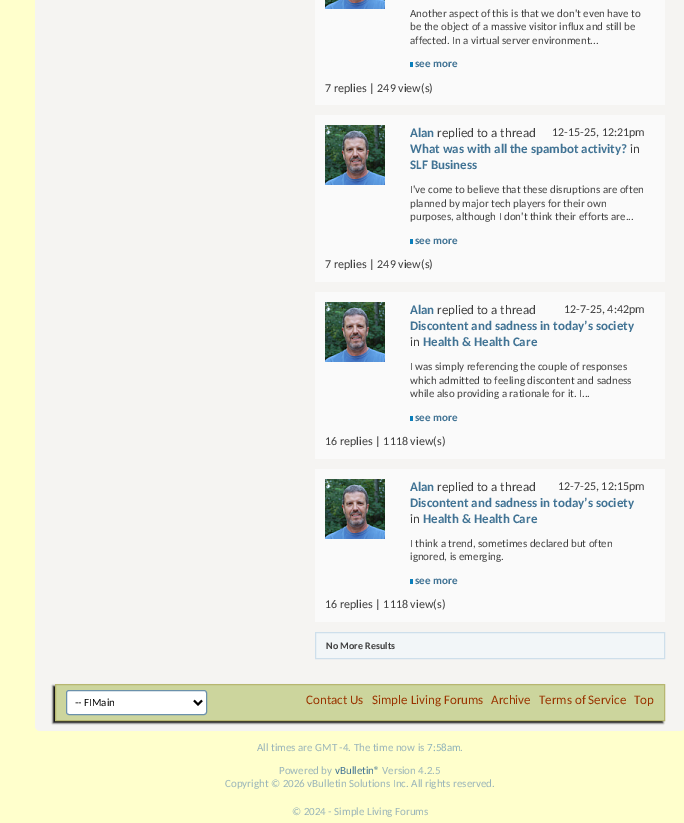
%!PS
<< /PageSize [684 823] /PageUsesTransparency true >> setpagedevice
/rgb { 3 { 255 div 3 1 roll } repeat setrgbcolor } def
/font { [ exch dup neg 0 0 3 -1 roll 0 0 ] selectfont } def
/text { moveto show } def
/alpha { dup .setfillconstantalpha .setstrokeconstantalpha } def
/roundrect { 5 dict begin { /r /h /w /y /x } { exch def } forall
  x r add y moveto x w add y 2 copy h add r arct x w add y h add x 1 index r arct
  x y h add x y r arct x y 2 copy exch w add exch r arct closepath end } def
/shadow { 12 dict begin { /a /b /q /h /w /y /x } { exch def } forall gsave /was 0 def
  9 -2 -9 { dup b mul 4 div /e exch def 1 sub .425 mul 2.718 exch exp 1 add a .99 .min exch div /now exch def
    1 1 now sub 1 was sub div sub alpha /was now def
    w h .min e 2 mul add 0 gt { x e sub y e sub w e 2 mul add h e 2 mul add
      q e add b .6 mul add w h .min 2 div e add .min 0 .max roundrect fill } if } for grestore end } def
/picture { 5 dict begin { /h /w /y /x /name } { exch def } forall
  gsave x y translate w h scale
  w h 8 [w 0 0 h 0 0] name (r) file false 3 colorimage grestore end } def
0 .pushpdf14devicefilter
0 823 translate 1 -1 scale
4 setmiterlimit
255 255 204 rgb
0 0 684 823 rectfill
245 244 242 rgb
35 -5 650 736 5 roundrect fill
250 250 250 rgb
315 0 350 105 rectfill
(img_01.rgb) 325 0 60 9 picture
10 127 188 rgb
410 62 3 5 rectfill
250 250 250 rgb
315 115 350 167 rectfill
(img_02.rgb) 325 125 60 60 picture
10 127 188 rgb
410 239 3 5 rectfill
250 250 250 rgb
315 292 350 167 rectfill
(img_02.rgb) 325 302 60 60 picture
10 127 188 rgb
410 416 3 5 rectfill
250 250 250 rgb
315 469 350 153 rectfill
(img_02.rgb) 325 479 60 60 picture
10 127 188 rgb
410 579 3 5 rectfill
242 246 248 rgb
315.5 632.5 moveto 349 0 rlineto 0 26 rlineto -349 0 rlineto closepath gsave fill grestore
206 223 235 rgb
stroke
0 0 0 rgb
53 686 610 37 0 1 1 shadow
204 213 157 rgb
55.5 684.5 moveto 609 0 rlineto 0 36 rlineto -609 0 rlineto closepath gsave fill grestore
183 183 113 rgb
stroke
255 255 255 rgb
66.5 690.5 140 24 2.5 roundrect gsave fill grestore
107 145 171 rgb
stroke
0 0 0 rgb
2 setlinewidth
194 700.5 moveto 4 4 rlineto 4 -4 rlineto stroke
/Carlito-Regular 11 font
62 62 62 rgb
(Another aspect of this is that we don't even have to) 410 17 text
(be the object of a massive visitor influx and still be) 410 30 text
(affected. In a virtual server environment...) 410 44 text
/Carlito-Bold 11 font
65 115 148 rgb
(see more) 415 67 text
/Carlito-Regular 12 font
62 62 62 rgb
(7 replies | 249 view\(s\)) 325 92 text
/Carlito-Bold 13 font
65 115 148 rgb
(Alan) 410 137 text
/Carlito-Regular 13 font
62 62 62 rgb
(replied to a thread) 437 137 text
/Carlito-Bold 13 font
65 115 148 rgb
(What was with all the spambot activity?) 410 153 text
/Carlito-Regular 13 font
62 62 62 rgb
(in) 630 153 text
/Carlito-Bold 13 font
65 115 148 rgb
(SLF Business) 410 169 text
/Carlito-Regular 12 font
62 62 62 rgb
(12-15-25, 12:21pm) 552 136 text
/Carlito-Regular 11 font
(I've come to believe that these disruptions are often) 410 193 text
(planned by major tech players for their own) 410 207 text
(purposes, although I don't think their efforts are...) 410 220 text
/Carlito-Bold 11 font
65 115 148 rgb
(see more) 415 244 text
/Carlito-Regular 12 font
62 62 62 rgb
(7 replies | 249 view\(s\)) 325 268 text
/Carlito-Bold 13 font
65 115 148 rgb
(Alan) 410 314 text
/Carlito-Regular 13 font
62 62 62 rgb
(replied to a thread) 437 314 text
/Carlito-Bold 13 font
65 115 148 rgb
(Discontent and sadness in today’s society) 410 330 text
/Carlito-Regular 13 font
62 62 62 rgb
(in) 410 346 text
/Carlito-Bold 13 font
65 115 148 rgb
(Health & Health Care) 423 346 text
/Carlito-Regular 12 font
62 62 62 rgb
(12-7-25, 4:42pm) 564 313 text
/Carlito-Regular 11 font
(I was simply referencing the couple of responses) 410 370 text
(which admitted to feeling discontent and sadness) 410 384 text
(while also providing a rationale for it. I...) 410 397 text
/Carlito-Bold 11 font
65 115 148 rgb
(see more) 415 421 text
/Carlito-Regular 12 font
62 62 62 rgb
(16 replies | 1118 view\(s\)) 325 445 text
/Carlito-Bold 13 font
65 115 148 rgb
(Alan) 410 491 text
/Carlito-Regular 13 font
62 62 62 rgb
(replied to a thread) 437 491 text
/Carlito-Bold 13 font
65 115 148 rgb
(Discontent and sadness in today’s society) 410 507 text
/Carlito-Regular 13 font
62 62 62 rgb
(in) 410 523 text
/Carlito-Bold 13 font
65 115 148 rgb
(Health & Health Care) 423 523 text
/Carlito-Regular 12 font
62 62 62 rgb
(12-7-25, 12:15pm) 558 490 text
/Carlito-Regular 11 font
(I think a trend, sometimes declared but often) 410 547 text
(ignored, is emerging.) 410 560 text
/Carlito-Bold 11 font
65 115 148 rgb
(see more) 415 584 text
/Carlito-Regular 12 font
62 62 62 rgb
(16 replies | 1118 view\(s\)) 325 608 text
/Carlito-Bold 10 font
(No More Results) 326 649 text
/Carlito-Regular 11 font
0 0 0 rgb
(-- FIMain) 75 706 text
/Carlito-Regular 13 font
153 51 0 rgb
(Contact Us) 306 704 text
(Simple Living Forums) 372 704 text
(Archive) 491 704 text
(Terms of Service) 539 704 text
(Top) 634 704 text
/Carlito-Regular 11 font
153 180 185 rgb
(All times are GMT -4. The time now is) 257 751 text
142 178 185 rgb
(7:58am) 427 751 text
153 180 185 rgb
(.) 460 751 text
(Powered by) 279 774 text
65 115 148 rgb
(vBulletin®) 335 774 text
153 180 185 rgb
(Version 4.2.5) 382 774 text
(Copyright © 2026 vBulletin Solutions Inc. All rights reserved.) 225 787 text
(© 2024 - Simple Living Forums) 292 815 text
.poppdf14devicefilter showpage
